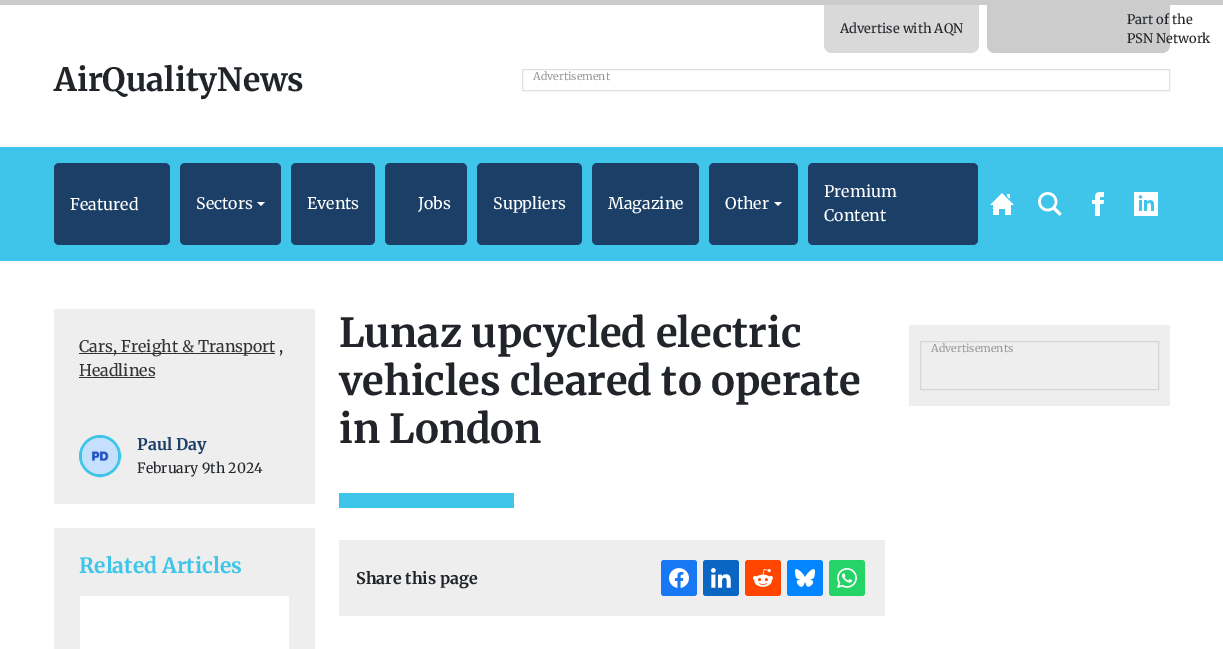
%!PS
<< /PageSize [1223 649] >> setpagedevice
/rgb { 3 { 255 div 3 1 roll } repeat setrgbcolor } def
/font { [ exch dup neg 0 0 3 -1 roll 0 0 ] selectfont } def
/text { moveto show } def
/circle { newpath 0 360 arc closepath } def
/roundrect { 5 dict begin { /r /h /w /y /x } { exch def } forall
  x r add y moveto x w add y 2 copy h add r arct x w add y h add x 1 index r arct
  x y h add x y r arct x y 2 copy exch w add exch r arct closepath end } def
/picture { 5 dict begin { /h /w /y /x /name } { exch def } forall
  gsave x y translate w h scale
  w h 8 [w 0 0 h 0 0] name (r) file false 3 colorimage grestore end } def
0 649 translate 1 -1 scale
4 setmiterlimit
255 255 255 rgb
0 0 1223 649 rectfill
204 204 204 rgb
0 0 1223 5 rectfill
217 217 217 rgb
824 5 moveto 155 0 rlineto 0 40 rlineto 0 4.5 -3.5 8 -8 8 rcurveto -139 0 rlineto -4.5 0 -8 -3.5 -8 -8 rcurveto closepath fill
204 204 204 rgb
987 5 moveto 183 0 rlineto 0 40 rlineto 0 4.5 -3.5 8 -8 8 rcurveto -167 0 rlineto -4.5 0 -8 -3.5 -8 -8 rcurveto closepath fill
224 224 224 rgb
522.5 69.5 647 21 rectstroke
63 197 234 rgb
0 147 1223 114 rectfill
27 63 103 rgb
54 163 116 82 5 roundrect fill
180 163 101 82 5 roundrect fill
255 255 255 rgb
257 202 moveto 8 0 rlineto -4 4 rlineto closepath fill
27 63 103 rgb
291 163 84 82 5 roundrect fill
385 163 82 82 5 roundrect fill
477 163 105 82 5 roundrect fill
592 163 107 82 5 roundrect fill
709 163 89 82 5 roundrect fill
255 255 255 rgb
774 202 moveto 8 0 rlineto -4 4 rlineto closepath fill
27 63 103 rgb
808 163 170 82 5 roundrect fill
(img_01.rgb) 990 193 24 22 picture
(img_02.rgb) 1038 192 24 24 picture
(img_03.rgb) 1092 192 12 24 picture
(img_04.rgb) 1134 192 24 24 picture
238 238 238 rgb
54 309 261 195 rectfill
51 51 51 rgb
79 353 196 1 rectfill
79 377 76 1 rectfill
63 197 234 rgb
3 setlinewidth
100 456 19.5 circle stroke
(img_05.rgb) 82 438 36 36 picture
238 238 238 rgb
54 528 261 121 rectfill
255 255 255 rgb
80 596 209 53 rectfill
63 197 234 rgb
339 493 175 15 rectfill
238 238 238 rgb
339 540 546 76 rectfill
24 119 242 rgb
661 560 36 36 3 roundrect fill
(img_06.rgb) 669 568 20 20 picture
10 102 194 rgb
703 560 36 36 3 roundrect fill
(img_07.rgb) 711 568 20 20 picture
255 69 0 rgb
745 560 36 36 3 roundrect fill
(img_08.rgb) 753 569 20 18 picture
2 133 255 rgb
787 560 36 36 3 roundrect fill
(img_09.rgb) 795 569 20 18 picture
37 211 102 rgb
829 560 36 36 3 roundrect fill
(img_10.rgb) 837 568 20 20 picture
238 238 238 rgb
909 325 261 81 rectfill
213 213 213 rgb
1 setlinewidth
920.5 341.5 238 48 rectstroke
/Merriweather-Regular 13 font
33 37 41 rgb
(Advertise with AQN) 840 33 text
(Part of the) 1127 24 text
(PSN Network) 1127 43 text
/Merriweather-Bold 32 font
(AirQualityNews) 54 91 text
/Merriweather-Regular 10.75 font
153 153 153 rgb
(Advertisement) 533 80 text
/Merriweather-Regular 16 font
255 255 255 rgb
(Featured) 70 210 text
(Sectors) 196 209 text
(Events) 307 209 text
(Jobs) 418 209 text
(Suppliers) 493 209 text
(Magazine) 608 209 text
(Other) 725 209 text
(Premium) 824 197 text
(Content) 824 221 text
51 51 51 rgb
(Cars, Freight & Transport) 79 352 text
33 37 41 rgb
(,) 279 352 text
51 51 51 rgb
(Headlines) 79 376 text
/Merriweather-Bold 16 font
27 63 103 rgb
(Paul Day) 137 450 text
/Merriweather-Regular 14 font
33 37 41 rgb
(February 9th 2024) 137 473 text
/Merriweather-Bold 21 font
63 197 234 rgb
(Related Articles) 79 573 text
/Merriweather-Bold 40 font
33 37 41 rgb
(Lunaz upcycled electric) 339 347 text
(vehicles cleared to operate) 339 395 text
(in London) 339 443 text
/Merriweather-Bold 16 font
(Share this page) 356 584 text
/Merriweather-Regular 10.75 font
153 153 153 rgb
(Advertisements) 931 352 text
showpage
